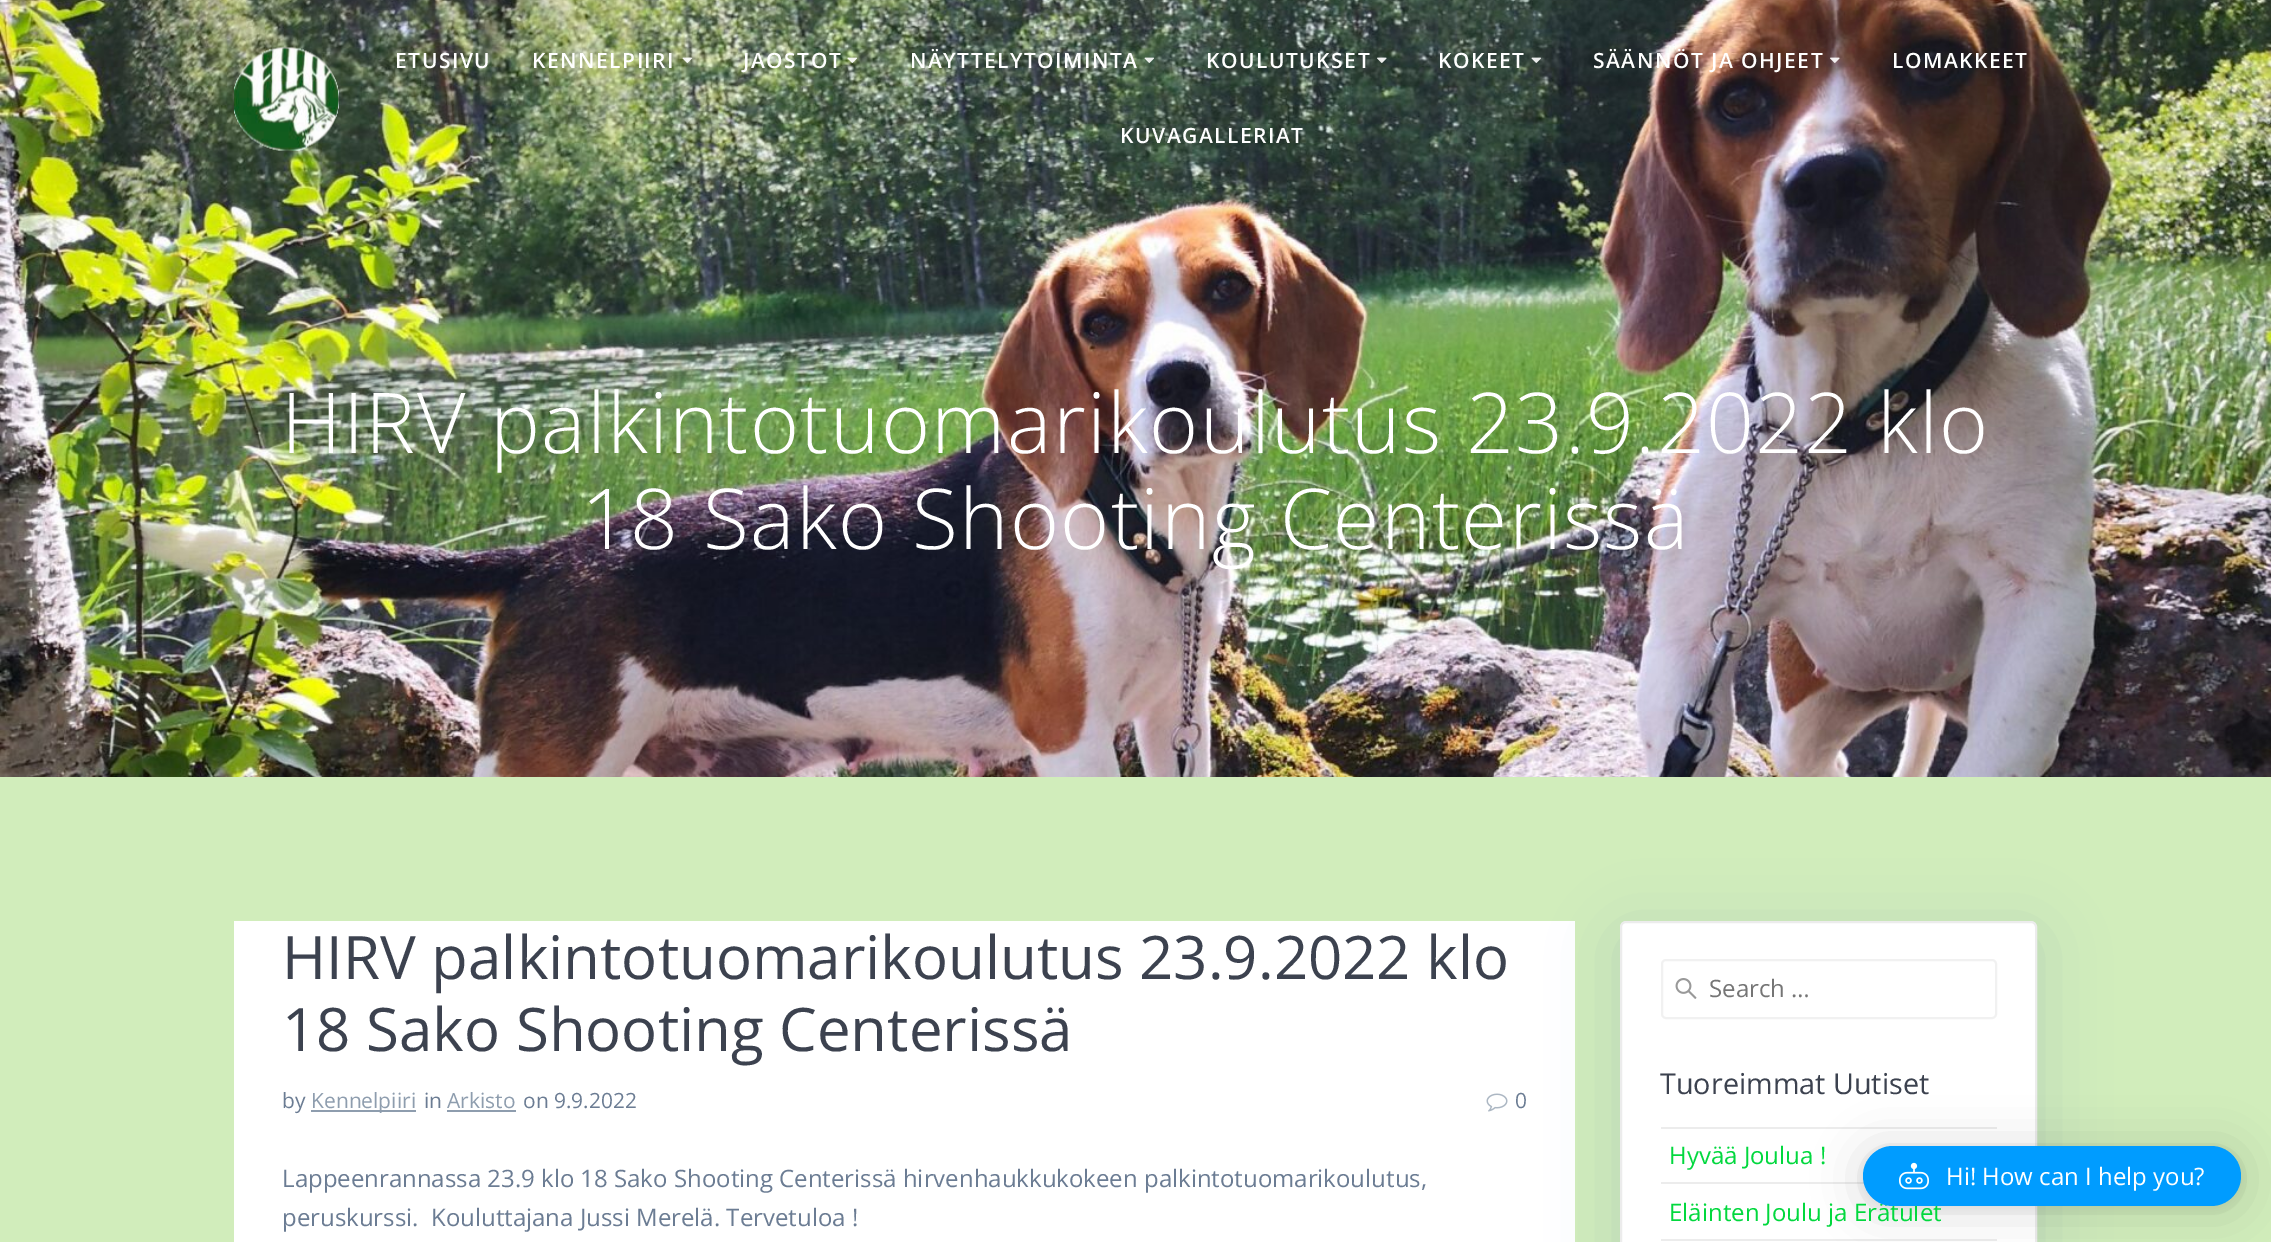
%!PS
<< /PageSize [2271 1242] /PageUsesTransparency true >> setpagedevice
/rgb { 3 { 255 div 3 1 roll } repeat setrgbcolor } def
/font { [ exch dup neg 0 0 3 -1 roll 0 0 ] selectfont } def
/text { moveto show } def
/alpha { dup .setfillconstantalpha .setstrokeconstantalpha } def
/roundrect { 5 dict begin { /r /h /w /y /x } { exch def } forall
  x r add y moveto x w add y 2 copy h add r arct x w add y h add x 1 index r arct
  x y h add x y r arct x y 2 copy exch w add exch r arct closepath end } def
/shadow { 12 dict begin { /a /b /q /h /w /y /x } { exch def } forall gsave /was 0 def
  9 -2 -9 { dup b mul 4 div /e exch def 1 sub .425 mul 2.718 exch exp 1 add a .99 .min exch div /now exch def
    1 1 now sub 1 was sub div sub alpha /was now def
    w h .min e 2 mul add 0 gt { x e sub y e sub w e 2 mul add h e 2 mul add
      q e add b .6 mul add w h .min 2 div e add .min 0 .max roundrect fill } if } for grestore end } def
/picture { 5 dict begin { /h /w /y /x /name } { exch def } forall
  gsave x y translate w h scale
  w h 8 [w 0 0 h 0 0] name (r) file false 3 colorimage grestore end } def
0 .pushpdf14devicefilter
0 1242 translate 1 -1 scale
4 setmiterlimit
255 255 255 rgb
0 0 2271 1242 rectfill
(img_08.rgb) 0 0 2271 777 picture
(img_01.rgb) 234 47 105 104 picture
(img_02.rgb) 682 57 10 6 picture
(img_03.rgb) 847 57 10 6 picture
(img_04.rgb) 1144 57 10 6 picture
(img_05.rgb) 1377 57 10 6 picture
(img_06.rgb) 1531 57 10 6 picture
(img_07.rgb) 1830 57 10 6 picture
209 237 187 rgb
0 777 2271 465 rectfill
255 255 255 rgb
234 921 1341 321 rectfill
142 157 174 rgb
311 1110 105 2 rectfill
447 1110 69 2 rectfill
(img_09.rgb) 1486 1093 22 19 picture
35 69 152 rgb
1620 935 417 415 6 34 0.15 shadow
255 255 255 rgb
1621 922 415 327 5 roundrect gsave fill grestore
236 236 236 rgb
2 setlinewidth
stroke
(img_10.rgb) 1675 978 22 21 picture
241 241 241 rgb
1662 960 334 58 4 roundrect stroke
236 236 236 rgb
1661 1127 336 2 rectfill
1661 1182 204 2 rectfill
1661 1239 336 2 rectfill
0 0 0 rgb
1863 1149 378 60 30 24 0.16 shadow
1863 1148 378 60 30 4.5 0.06 shadow
/OpenSans-SemiBold 21 font
255 255 255 rgb
395 68 moveto 1.5 0 (ETUSIVU) ashow
532 68 moveto 1.5 0 (KENNELPIIRI) ashow
743 68 moveto 1.5 0 (JAOSTOT) ashow
910 68 moveto 1.5 0 (NÄYTTELYTOIMINTA) ashow
1206 68 moveto 1.5 0 (KOULUTUKSET) ashow
1438 68 moveto 1.5 0 (KOKEET) ashow
1593 68 moveto 1.5 0 (SÄÄNNÖT JA OHJEET) ashow
1892 68 moveto 1.5 0 (LOMAKKEET) ashow
1120 143 moveto 1.5 0 (KUVAGALLERIAT) ashow
/OpenSans-Light 84 font
281 453 moveto 1.35 0 (HIRV palkintotuomarikoulutus 23.9.2022 klo) ashow
581 549 moveto 1.35 0 (18 Sako Shooting Centerissä) ashow
/OpenSans-Regular 60 font
60 66 79 rgb
(HIRV palkintotuomarikoulutus 23.9.2022 klo) 282 979 text
(18 Sako Shooting Centerissä) 282 1051 text
/OpenSans-Regular 21 font
107 124 147 rgb
(by) 282 1108 text
142 157 174 rgb
(Kennelpiiri) 311 1108 text
107 124 147 rgb
(in) 424 1108 text
142 157 174 rgb
(Arkisto) 447 1108 text
107 124 147 rgb
(on 9.9.2022) 523 1108 text
(0) 1515 1108 text
/OpenSans-Regular 24 font
(Lappeenrannassa 23.9 klo 18 Sako Shooting Centerissä hirvenhaukkukokeen palkintotuomarikoulutus,) 282 1187 text
(peruskurssi.  Kouluttajana Jussi Merelä. Tervetuloa !) 282 1226 text
117 117 117 rgb
(Search …) 1709 997 text
/OpenSans-Regular 28.75 font
60 66 79 rgb
(Tuoreimmat Uutiset) 1660 1094 text
/OpenSans-Regular 24 font
2 216 62 rgb
(Hyvää Joulua !) 1669 1164 text
(Eläinten Joulu ja Erätulet) 1669 1221 text
0 156 255 rgb
1863 1146 378 60 30 roundrect fill
(img_11.rgb) 1899 1162 30 28 picture
255 255 255 rgb
(Hi! How can I help you?) 1946 1185 text
.poppdf14devicefilter showpage
